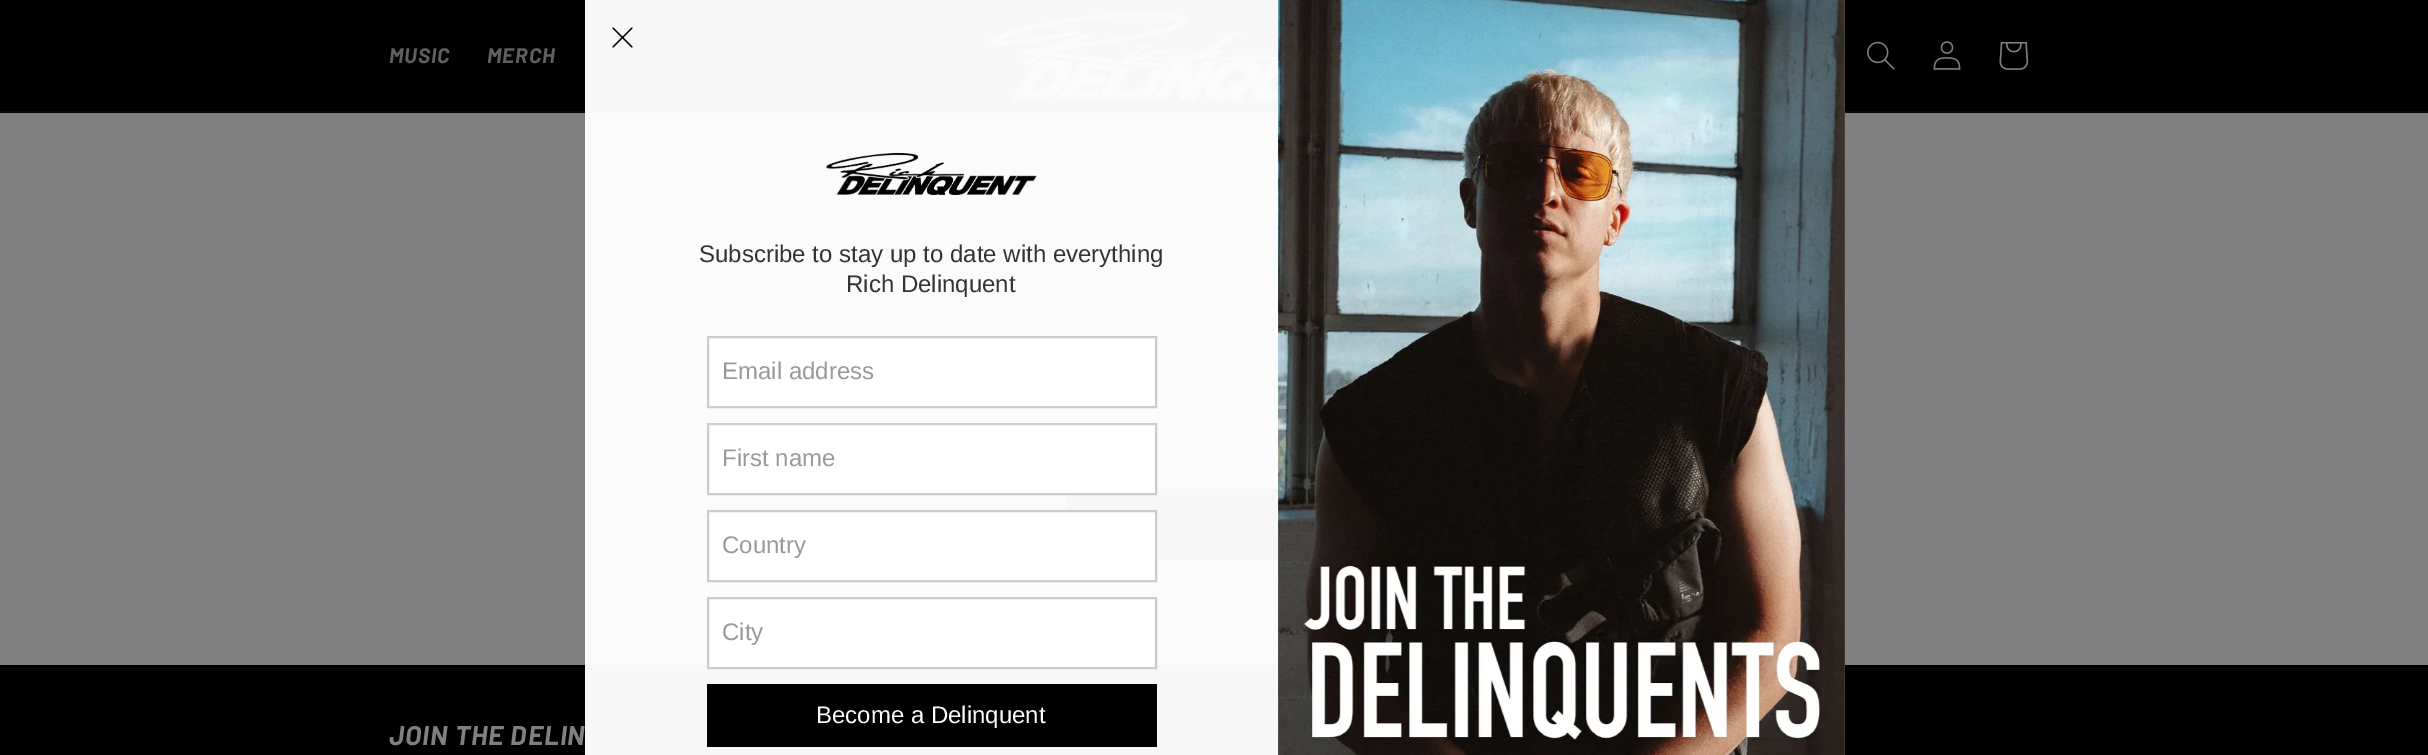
%!PS
<< /PageSize [2428 755] /PageUsesTransparency true >> setpagedevice
/rgb { 3 { 255 div 3 1 roll } repeat setrgbcolor } def
/font { [ exch dup neg 0 0 3 -1 roll 0 0 ] selectfont } def
/text { moveto show } def
/alpha { dup .setfillconstantalpha .setstrokeconstantalpha } def
/picture { 5 dict begin { /h /w /y /x /name } { exch def } forall
  gsave x y translate w h scale
  w h 8 [w 0 0 h 0 0] name (r) file false 3 colorimage grestore end } def
0 .pushpdf14devicefilter
0 755 translate 1 -1 scale
4 setmiterlimit
128 128 128 rgb
0 0 2428 755 rectfill
0 0 0 rgb
0 0 2428 111 rectfill
10 10 10 rgb
0 111 2428 2 rectfill
(img_01.rgb) 990 12 289 89 picture
(img_02.rgb) 1867 41 28 29 picture
(img_03.rgb) 1933 41 28 29 picture
(img_04.rgb) 1999 42 30 28 picture
9 9 9 rgb
1067 489 212 71 rectfill
0 0 0 rgb
0 665 2428 90 rectfill
/Barlow-BoldItalic 21 font
96 96 96 rgb
389 63 moveto 0.9 0 (MUSIC) ashow
487 63 moveto 0.9 0 (MERCH) ashow
/Barlow-BoldItalic 27 font
128 128 128 rgb
389 745 moveto 0.9 0 (JOIN THE DELIN) ashow
0.97 alpha
255 255 255 rgb
585 0 1260 755 rectfill
1 alpha
(img_06.rgb) 1278 0 567 755 picture
0 0 0 rgb
1.1 setlinewidth
1 setlinecap
613 28 moveto 19 19 rlineto 632 28 moveto -19 19 rlineto stroke
(img_05.rgb) 826 153 211 42 picture
/LiberationSans-Regular 24 font
51 51 51 rgb
(Rich Delinquent) 846 292 text
(Subscribe to stay up to date with everything) 699 262 text
255 255 255 rgb
708 337 moveto 448 0 rlineto 0 70 rlineto -448 0 rlineto closepath gsave fill grestore
204 204 204 rgb
2 setlinewidth
0 setlinecap
stroke
153 153 153 rgb
(Email address) 722 379 text
255 255 255 rgb
708 424 moveto 448 0 rlineto 0 70 rlineto -448 0 rlineto closepath gsave fill grestore
204 204 204 rgb
stroke
153 153 153 rgb
(First name) 722 466 text
255 255 255 rgb
708 511 moveto 448 0 rlineto 0 70 rlineto -448 0 rlineto closepath gsave fill grestore
204 204 204 rgb
stroke
153 153 153 rgb
(Country) 722 553 text
255 255 255 rgb
708 598 moveto 448 0 rlineto 0 70 rlineto -448 0 rlineto closepath gsave fill grestore
204 204 204 rgb
stroke
153 153 153 rgb
(City) 722 640 text
0 0 0 rgb
707 684 450 63 rectfill
255 249 249 rgb
(Become a Delinquent) 816 723 text
.poppdf14devicefilter showpage
